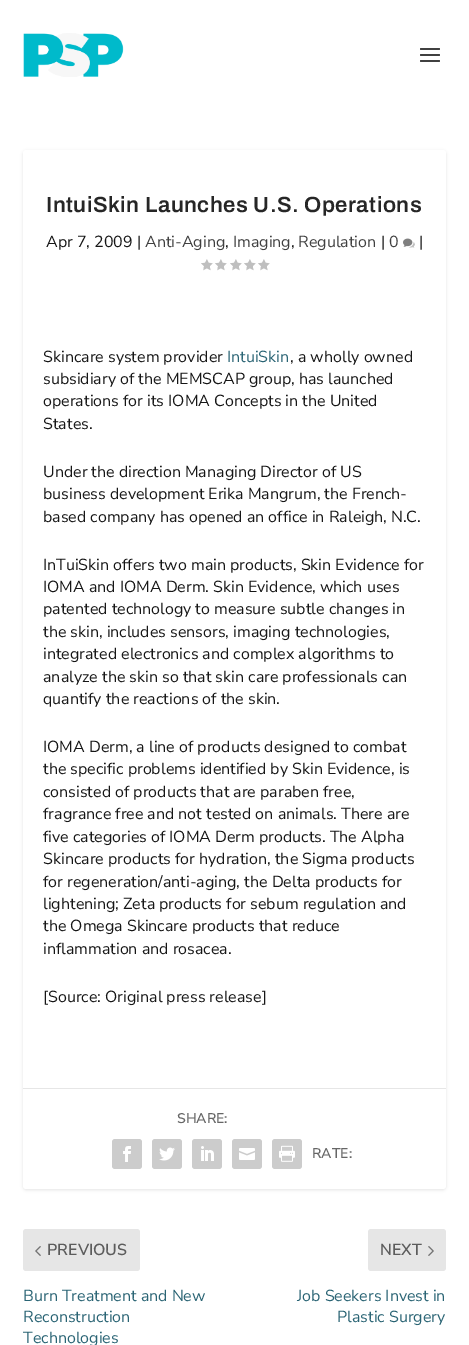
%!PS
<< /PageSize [469 1345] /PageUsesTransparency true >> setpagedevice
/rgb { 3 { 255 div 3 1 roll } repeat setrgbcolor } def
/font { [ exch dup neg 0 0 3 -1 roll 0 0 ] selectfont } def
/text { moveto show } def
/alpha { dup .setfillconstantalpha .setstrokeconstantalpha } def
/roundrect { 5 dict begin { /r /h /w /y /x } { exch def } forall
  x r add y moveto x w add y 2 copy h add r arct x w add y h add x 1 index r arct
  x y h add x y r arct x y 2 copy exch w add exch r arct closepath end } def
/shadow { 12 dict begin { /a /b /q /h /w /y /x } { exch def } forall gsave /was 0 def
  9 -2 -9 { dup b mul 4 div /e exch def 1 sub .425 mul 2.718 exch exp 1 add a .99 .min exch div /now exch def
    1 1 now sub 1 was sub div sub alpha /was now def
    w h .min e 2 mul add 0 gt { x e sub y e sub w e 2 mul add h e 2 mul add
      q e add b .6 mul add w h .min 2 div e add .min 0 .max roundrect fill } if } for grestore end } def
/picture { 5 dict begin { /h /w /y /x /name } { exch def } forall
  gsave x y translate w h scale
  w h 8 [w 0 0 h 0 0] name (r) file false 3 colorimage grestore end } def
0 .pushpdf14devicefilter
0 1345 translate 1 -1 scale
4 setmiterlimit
255 255 255 rgb
0 0 469 1345 rectfill
(img_01.rgb) 23 33 101 44 picture
64 64 64 rgb
420 48 20 2 1 roundrect fill
420 54 20 2 1 roundrect fill
420 60 20 2 1 roundrect fill
0 0 0 rgb
23 151 423 1039 3 1.5 0.1 shadow
255 255 255 rgb
23 150 423 1039 3 roundrect fill
(img_02.rgb) 403 238 12 10 picture
(img_03.rgb) 201 259 12 12 picture
(img_03.rgb) 215 259 12 12 picture
(img_03.rgb) 230 259 12 12 picture
(img_03.rgb) 244 259 12 12 picture
(img_03.rgb) 258 259 12 12 picture
230 230 230 rgb
23 1088 423 1 rectfill
204 204 204 rgb
112 1139 30 30 3 roundrect fill
(img_04.rgb) 123 1146 8 16 picture
152 1139 30 30 3 roundrect fill
(img_05.rgb) 159 1147 16 14 picture
192 1139 30 30 3 roundrect fill
(img_06.rgb) 201 1146 13 15 picture
232 1139 30 30 3 roundrect fill
(img_07.rgb) 239 1148 16 12 picture
272 1139 30 30 3 roundrect fill
(img_08.rgb) 279 1145 16 17 picture
230 230 230 rgb
23 1229 117 42 3 roundrect fill
(img_09.rgb) 35 1246 6 10 picture
368 1229 78 42 3 roundrect fill
(img_10.rgb) 428 1246 6 10 picture
/Archivo-SemiBold 22 font
38 38 38 rgb
46 212 moveto 0.5 0 (IntuiSkin Launches U.S. Operations) ashow
/NunitoSans-Regular 16 font
22 22 22 rgb
(Apr 7, 2009 |) 46 247 text
64 64 64 rgb
(Anti-Aging) 145 247 text
22 22 22 rgb
(,) 225 247 text
64 64 64 rgb
(Imaging) 233 247 text
22 22 22 rgb
(,) 291 247 text
64 64 64 rgb
(Regulation) 298 247 text
22 22 22 rgb
(|) 381 247 text
64 64 64 rgb
(0) 389 247 text
22 22 22 rgb
(|) 419 247 text
(Skincare system provider) 43 362 text
42 100 116 rgb
(IntuiSkin) 227 362 text
22 22 22 rgb
(, a wholly owned) 290 362 text
(subsidiary of the MEMSCAP group, has launched) 43 384 text
(operations for its IOMA Concepts in the United) 43 406 text
(States.) 43 429 text
(Under the direction Managing Director of US) 43 477 text
(business development Erika Mangrum, the French-) 43 499 text
(based company has opened an office in Raleigh, N.C.) 43 522 text
(InTuiSkin offers two main products, Skin Evidence for) 43 570 text
(IOMA and IOMA Derm. Skin Evidence, which uses) 43 592 text
(patented technology to measure subtle changes in) 43 614 text
(the skin, includes sensors, imaging technologies,) 43 637 text
(integrated electronics and complex algorithms to) 43 659 text
(analyze the skin so that skin care professionals can) 43 682 text
(quantify the reactions of the skin.) 43 704 text
(IOMA Derm, a line of products designed to combat) 43 752 text
(the specific problems identified by Skin Evidence, is) 43 774 text
(consisted of products that are paraben free,) 43 797 text
(fragrance free and not tested on animals. There are) 43 819 text
(five categories of IOMA Derm products. The Alpha) 43 842 text
(Skincare products for hydration, the Sigma products) 43 864 text
(for regeneration/anti-aging, the Delta products for) 43 887 text
(lightening; Zeta products for sebum regulation and) 43 909 text
(the Omega Skincare products that reduce) 43 931 text
(inflammation and rosacea.) 43 954 text
([Source: Original press release]) 43 1002 text
/NunitoSans-SemiBold 14 font
102 102 102 rgb
(SHARE:) 177 1123 text
(RATE:) 312 1158 text
/NunitoSans-SemiBold 16 font
92 92 92 rgb
(PREVIOUS) 47 1255 text
/NunitoSans-Regular 16 font
42 100 116 rgb
(Burn Treatment and New) 23 1301 text
(Reconstruction) 23 1322 text
(Technologies) 23 1343 text
/NunitoSans-SemiBold 16 font
92 92 92 rgb
(NEXT) 380 1255 text
/NunitoSans-Regular 16 font
42 100 116 rgb
(Job Seekers Invest in) 297 1301 text
(Plastic Surgery) 337 1322 text
.poppdf14devicefilter showpage
